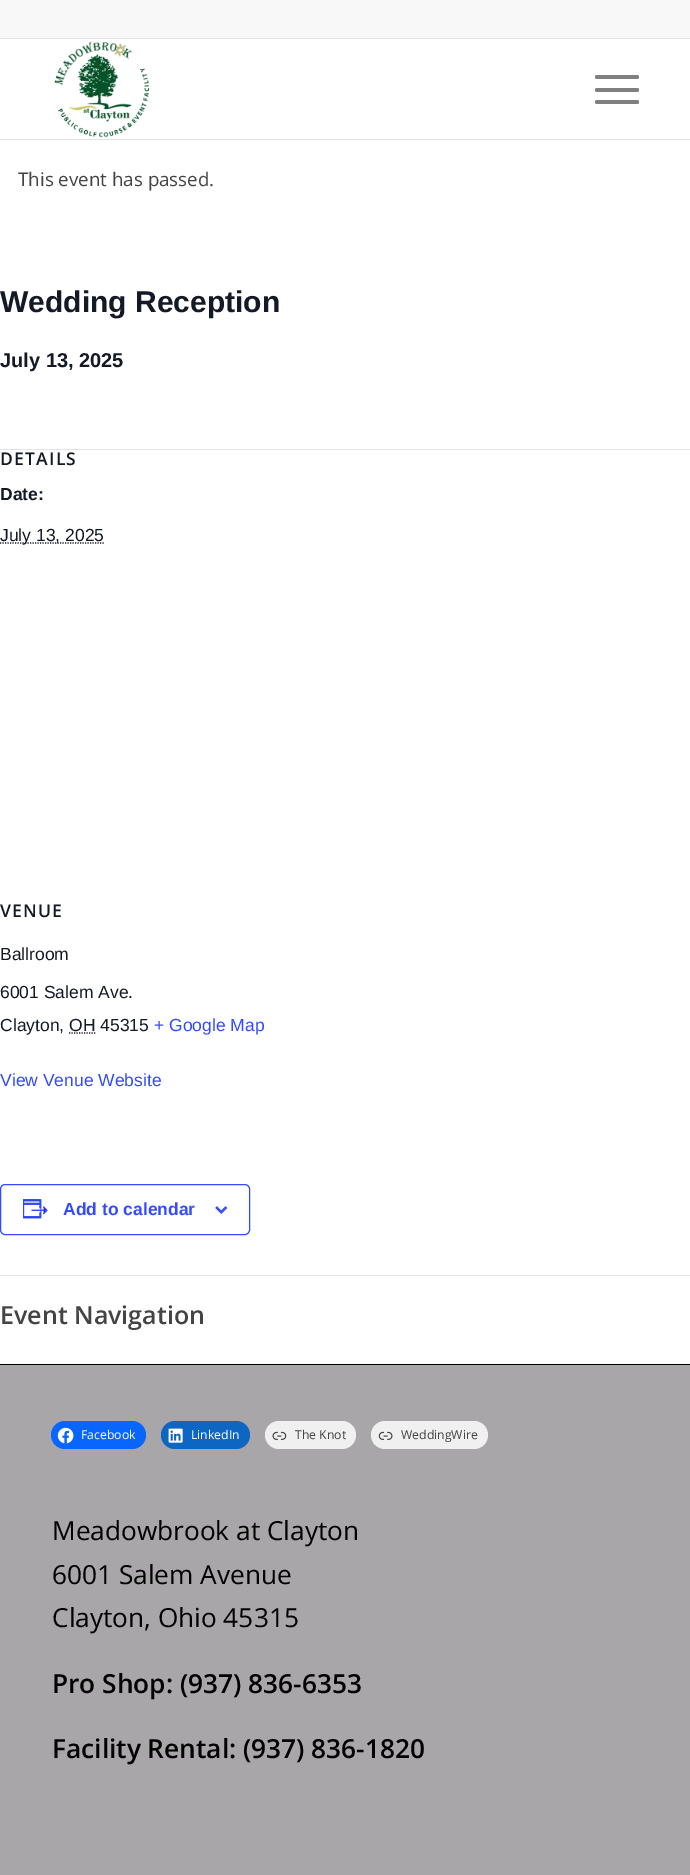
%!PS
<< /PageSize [690 1875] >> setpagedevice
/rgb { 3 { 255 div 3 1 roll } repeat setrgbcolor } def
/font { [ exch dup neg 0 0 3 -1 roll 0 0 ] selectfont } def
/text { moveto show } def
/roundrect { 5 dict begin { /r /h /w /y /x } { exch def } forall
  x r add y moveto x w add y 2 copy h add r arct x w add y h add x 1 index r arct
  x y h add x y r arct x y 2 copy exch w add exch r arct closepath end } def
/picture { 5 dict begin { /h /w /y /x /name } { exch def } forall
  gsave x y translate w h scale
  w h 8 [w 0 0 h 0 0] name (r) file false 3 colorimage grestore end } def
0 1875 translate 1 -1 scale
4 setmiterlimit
255 255 255 rgb
0 0 690 1875 rectfill
248 248 248 rgb
0 0 690 38 rectfill
225 225 225 rgb
0 38 690 1 rectfill
0 139 690 1 rectfill
(img_01.rgb) 54 41 96 97 picture
128 128 128 rgb
595 88 44 4 2 roundrect fill
595 75 44 4 2 roundrect fill
595 100 44 4 2 roundrect fill
228 228 228 rgb
0 449 690 1 rectfill
20 24 39 rgb
1.2 setlinewidth
[1.25 1.25] 0 setdash
0 543 moveto 104 0 rlineto stroke
69 1033 moveto 26.5 0 rlineto stroke
51 74 255 rgb
1 setlinewidth
[] 0 setdash
0.5 1184.5 249 50 4.5 roundrect stroke
(img_02.rgb) 23 1199 25 20 picture
(img_03.rgb) 215 1206 13 8 picture
228 228 228 rgb
0 1275 690 1 rectfill
168 166 168 rgb
0 1365 690 510 rectfill
0 0 0 rgb
0 1364 690 1 rectfill
8 102 255 rgb
51 1421 95 28 14 roundrect fill
(img_04.rgb) 57 1427 17 17 picture
13 102 194 rgb
161 1421 89 28 14 roundrect fill
(img_05.rgb) 168 1428 15 15 picture
240 240 240 rgb
265 1421 91 28 14 roundrect fill
(img_06.rgb) 272 1431 15 9 picture
371 1421 117 28 14 roundrect fill
(img_07.rgb) 378 1431 15 9 picture
/OpenSans-Regular 18.75 font
68 68 68 rgb
(This event has passed.) 18 186 text
/LiberationSans-Bold 30 font
20 24 39 rgb
(Wedding Reception) 0 312 text
/LiberationSans-Bold 20 font
(July 13, 2025) 0 367 text
/OpenSans-SemiBold 17.5 font
0 465 moveto 1.25 0 (DETAILS) ashow
/LiberationSans-Bold 17.5 font
(Date:) 0 500 text
/LiberationSans-Regular 17.5 font
(July 13, 2025) 0 541 text
/OpenSans-SemiBold 17.5 font
0 917 moveto 1.25 0 (VENUE) ashow
/LiberationSans-Regular 17.5 font
(Ballroom) 0 960 text
(6001 Salem Ave.) 0 998 text
(Clayton, OH 45315) 0 1031 text
51 74 255 rgb
(+ Google Map) 154 1031 text
(View Venue Website) 0 1086 text
/LiberationSans-Bold 17.5 font
(Add to calendar) 63 1215 text
/OpenSans-SemiBold 25 font
68 68 68 rgb
(Event Navigation) 0 1324 text
/OpenSans-Regular 12.25 font
255 255 255 rgb
(Facebook) 81 1439 text
(LinkedIn) 191 1439 text
68 68 68 rgb
(The Knot) 295 1439 text
(WeddingWire) 401 1439 text
/OpenSans-Regular 26.25 font
0 0 0 rgb
(Meadowbrook at Clayton) 52 1540 text
(6001 Salem Avenue) 52 1584 text
(Clayton, Ohio 45315) 52 1627 text
/OpenSans-SemiBold 26.25 font
(Pro Shop: \(937\) 836-6353) 52 1693 text
(Facility Rental: \(937\) 836-1820) 52 1758 text
showpage
